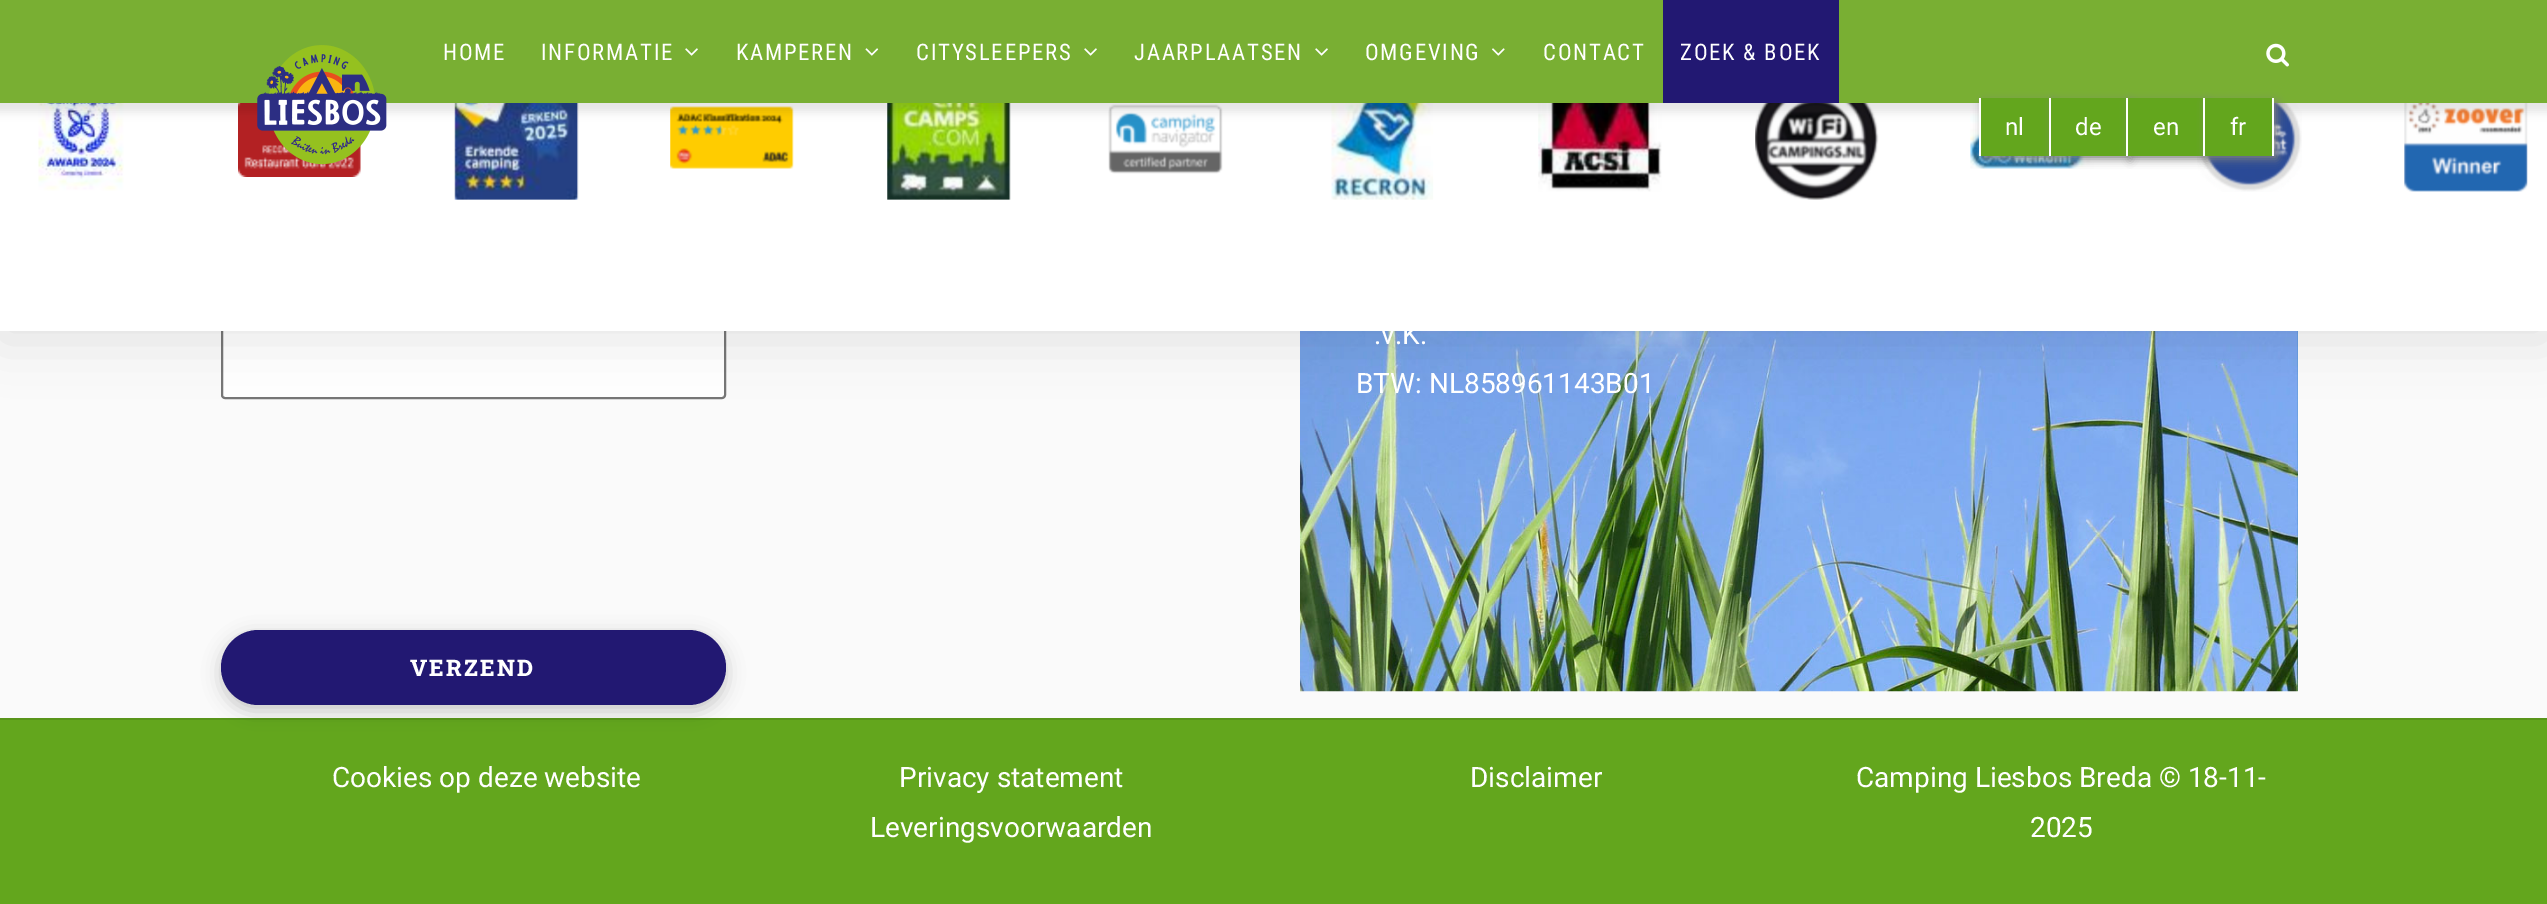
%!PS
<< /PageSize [2547 904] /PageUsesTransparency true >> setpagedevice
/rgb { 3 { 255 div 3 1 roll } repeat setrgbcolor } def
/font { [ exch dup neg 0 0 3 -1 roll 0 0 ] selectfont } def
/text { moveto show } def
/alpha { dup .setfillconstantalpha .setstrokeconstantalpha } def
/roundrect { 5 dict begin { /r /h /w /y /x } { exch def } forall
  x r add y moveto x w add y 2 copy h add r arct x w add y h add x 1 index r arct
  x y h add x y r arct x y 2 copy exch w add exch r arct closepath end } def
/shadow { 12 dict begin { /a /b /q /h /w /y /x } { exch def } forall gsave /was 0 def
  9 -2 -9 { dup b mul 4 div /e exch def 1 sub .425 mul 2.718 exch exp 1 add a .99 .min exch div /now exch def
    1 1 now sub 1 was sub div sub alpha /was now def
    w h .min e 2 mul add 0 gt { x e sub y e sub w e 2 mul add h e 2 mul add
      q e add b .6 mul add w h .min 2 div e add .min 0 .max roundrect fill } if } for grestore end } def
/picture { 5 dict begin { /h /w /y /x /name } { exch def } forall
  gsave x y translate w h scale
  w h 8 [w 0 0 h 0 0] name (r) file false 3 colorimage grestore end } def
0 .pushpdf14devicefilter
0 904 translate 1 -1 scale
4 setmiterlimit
250 250 250 rgb
0 0 2547 904 rectfill
(img_18.rgb) 1300 331 998 361 picture
255 255 255 rgb
222 145 503 253 3 roundrect gsave fill grestore
118 118 118 rgb
2 setlinewidth
stroke
0 0 0 rgb
0 -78 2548 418 0 26 0.1 shadow
255 255 255 rgb
0 103 2547 228 rectfill
(img_06.rgb) 38 103 86 88 picture
(img_07.rgb) 238 103 123 74 picture
(img_08.rgb) 454 103 125 97 picture
(img_09.rgb) 670 106 124 63 picture
(img_10.rgb) 887 103 124 97 picture
(img_11.rgb) 1108 104 115 70 picture
(img_12.rgb) 1331 103 103 97 picture
(img_13.rgb) 1538 103 124 89 picture
(img_14.rgb) 1755 103 124 97 picture
(img_15.rgb) 1970 108 124 61 picture
(img_16.rgb) 2197 103 105 89 picture
(img_17.rgb) 2404 103 124 89 picture
0 0 0 rgb
-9 -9 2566 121 0 4.5 0.1 shadow
121 175 51 rgb
0 0 2547 103 rectfill
(img_01.rgb) 257 45 130 120 picture
(img_02.rgb) 685 48 13 8 picture
(img_03.rgb) 865 48 14 8 picture
(img_02.rgb) 1084 48 13 8 picture
(img_02.rgb) 1315 48 13 8 picture
(img_04.rgb) 1492 48 13 8 picture
34 24 114 rgb
1663 0 176 103 rectfill
128 128 128 rgb
1983 102 70 57 0 4.5 1 shadow
99 166 29 rgb
1981 98 68 58 rectfill
255 255 255 rgb
1979 98 2 58 rectfill
128 128 128 rgb
2053 102 77 57 0 4.5 1 shadow
99 166 29 rgb
2051 98 75 58 rectfill
255 255 255 rgb
2049 98 2 58 rectfill
128 128 128 rgb
2130 102 77 57 0 4.5 1 shadow
99 166 29 rgb
2128 98 75 58 rectfill
255 255 255 rgb
2126 98 2 58 rectfill
128 128 128 rgb
2207 102 70 57 0 4.5 1 shadow
99 166 29 rgb
2205 98 67 58 rectfill
255 255 255 rgb
2272 98 2 58 rectfill
2203 98 2 58 rectfill
(img_05.rgb) 2266 43 23 24 picture
99 166 29 rgb
0 720 2547 184 rectfill
89 149 26 rgb
0 718 2547 2 rectfill
0 0 0 rgb
221 635 505 76 38 9 0.2 shadow
34 24 114 rgb
221 630 505 75 37.5 roundrect fill
/RobotoCondensed-Regular 22.75 font
255 255 255 rgb
443 60 moveto 1.75 0 (HOME) ashow
541 60 moveto 1.75 0 (INFORMATIE) ashow
736 60 moveto 1.75 0 (KAMPEREN) ashow
916 60 moveto 1.75 0 (CITYSLEEPERS) ashow
1134 60 moveto 1.75 0 (JAARPLAATSEN) ashow
1365 60 moveto 1.75 0 (OMGEVING) ashow
1543 60 moveto 1.75 0 (CONTACT) ashow
1680 60 moveto 1.75 0 (ZOEK & BOEK) ashow
/Roboto-Regular 24 font
(nl) 2005 135 text
(de) 2075 135 text
(en) 2153 135 text
(fr) 2230 135 text
/Roboto-Regular 28 font
(.v.K.) 1374 344 text
(BTW: NL858961143B01) 1356 393 text
/RobotoSlab-ExtraBold 22.75 font
410 676 moveto 2.25 0 (VERZEND) ashow
/Roboto-Regular 28 font
(Cookies op deze website) 332 787 text
(Privacy statement) 899 787 text
(Leveringsvoorwaarden) 870 837 text
(Disclaimer) 1470 787 text
(Camping Liesbos Breda © 18-11-) 1856 787 text
(2025) 2030 837 text
.poppdf14devicefilter showpage
